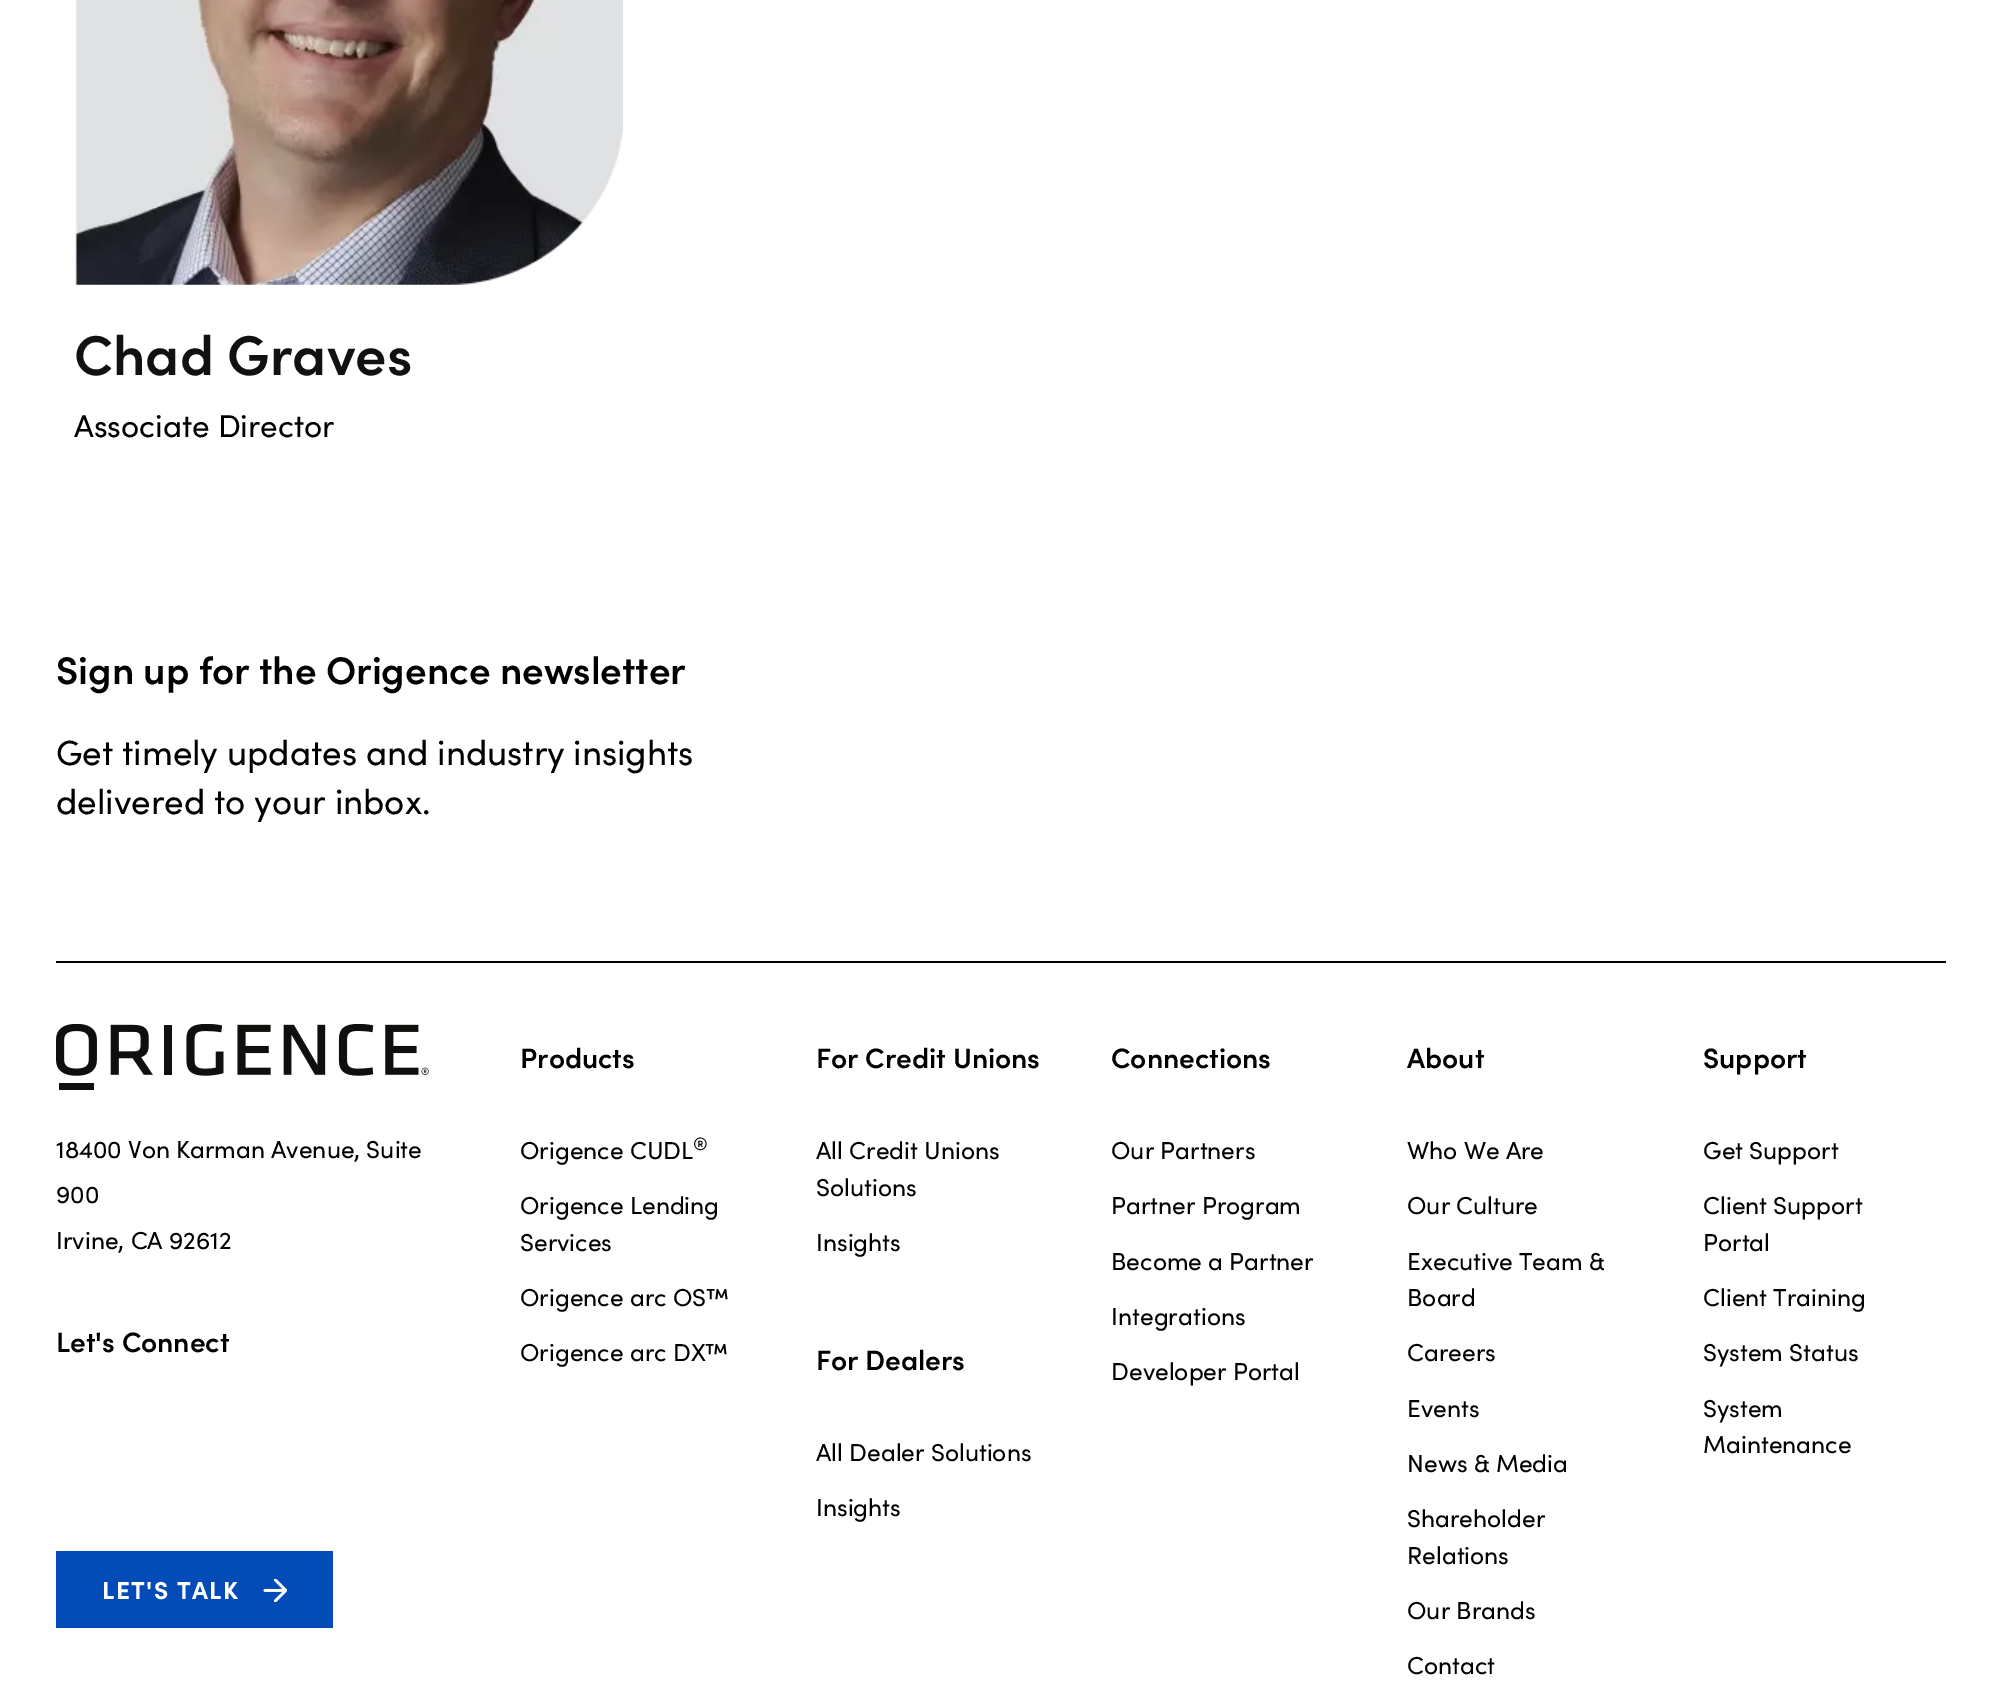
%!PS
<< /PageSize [2001 1692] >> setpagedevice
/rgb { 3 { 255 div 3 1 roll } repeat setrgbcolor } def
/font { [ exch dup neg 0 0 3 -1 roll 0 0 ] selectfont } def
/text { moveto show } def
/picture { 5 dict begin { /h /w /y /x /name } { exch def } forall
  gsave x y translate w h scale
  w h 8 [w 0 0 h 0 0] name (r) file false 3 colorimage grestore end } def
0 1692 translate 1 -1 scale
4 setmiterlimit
255 255 255 rgb
0 0 2001 1692 rectfill
(img_01.rgb) 75 0 548 285 picture
0 0 0 rgb
56 961 1890 2 rectfill
(img_02.rgb) 56 1024 373 66 picture
3 75 183 rgb
56 1551 277 77 rectfill
(img_03.rgb) 263 1579 24 23 picture
/Sofia-SemiBold 56 font
17 17 17 rgb
(Chad Graves) 74 375 text
/Sofia-Regular 31.5 font
0 0 0 rgb
(Associate Director) 74 437 text
/Sofia-SemiBold 38.5 font
(Sign up for the Origence newsletter) 56 684 text
/Sofia-Regular 35 font
(Get timely updates and industry insights) 56 765 text
(delivered to your inbox.) 56 814 text
/Sofia-Regular 24.5 font
(18400 Von Karman Avenue, Suite) 56 1158 text
(900) 56 1203 text
(Irvine, CA 92612) 56 1249 text
/Sofia-SemiBold 28 font
(Let's Connect) 56 1352 text
/Sofia-Bold 24.5 font
255 255 255 rgb
102 1599 moveto 1.4 0 (LET'S TALK) ashow
/Sofia-SemiBold 28 font
0 0 0 rgb
(Products) 520 1068 text
/Sofia-Regular 24.5 font
(Origence CUDL) 520 1159 text
/Sofia-Regular 18 font
(®) 693 1150 text
/Sofia-Regular 24.5 font
(Origence Lending) 520 1214 text
(Services) 520 1251 text
(Origence arc OS™) 520 1306 text
(Origence arc DX™) 520 1361 text
/Sofia-SemiBold 28 font
(For Credit Unions) 816 1068 text
/Sofia-Regular 24.5 font
(All Credit Unions) 816 1159 text
(Solutions) 816 1196 text
(Insights) 816 1251 text
/Sofia-SemiBold 28 font
(For Dealers) 816 1370 text
/Sofia-Regular 24.5 font
(All Dealer Solutions) 816 1461 text
(Insights) 816 1516 text
/Sofia-SemiBold 28 font
(Connections) 1111 1068 text
/Sofia-Regular 24.5 font
(Our Partners) 1111 1159 text
(Partner Program) 1111 1214 text
(Become a Partner) 1111 1270 text
(Integrations) 1111 1325 text
(Developer Portal) 1111 1380 text
/Sofia-SemiBold 28 font
(About) 1407 1068 text
/Sofia-Regular 24.5 font
(Who We Are) 1407 1159 text
(Our Culture) 1407 1214 text
(Executive Team &) 1407 1270 text
(Board) 1407 1306 text
(Careers) 1407 1361 text
(Events) 1407 1417 text
(News & Media) 1407 1472 text
(Shareholder) 1407 1527 text
(Relations) 1407 1564 text
(Our Brands) 1407 1619 text
(Contact) 1407 1674 text
/Sofia-SemiBold 28 font
(Support) 1703 1068 text
/Sofia-Regular 24.5 font
(Get Support) 1703 1159 text
(Client Support) 1703 1214 text
(Portal) 1703 1251 text
(Client Training) 1703 1306 text
(System Status) 1703 1361 text
(System) 1703 1417 text
(Maintenance) 1703 1453 text
showpage
